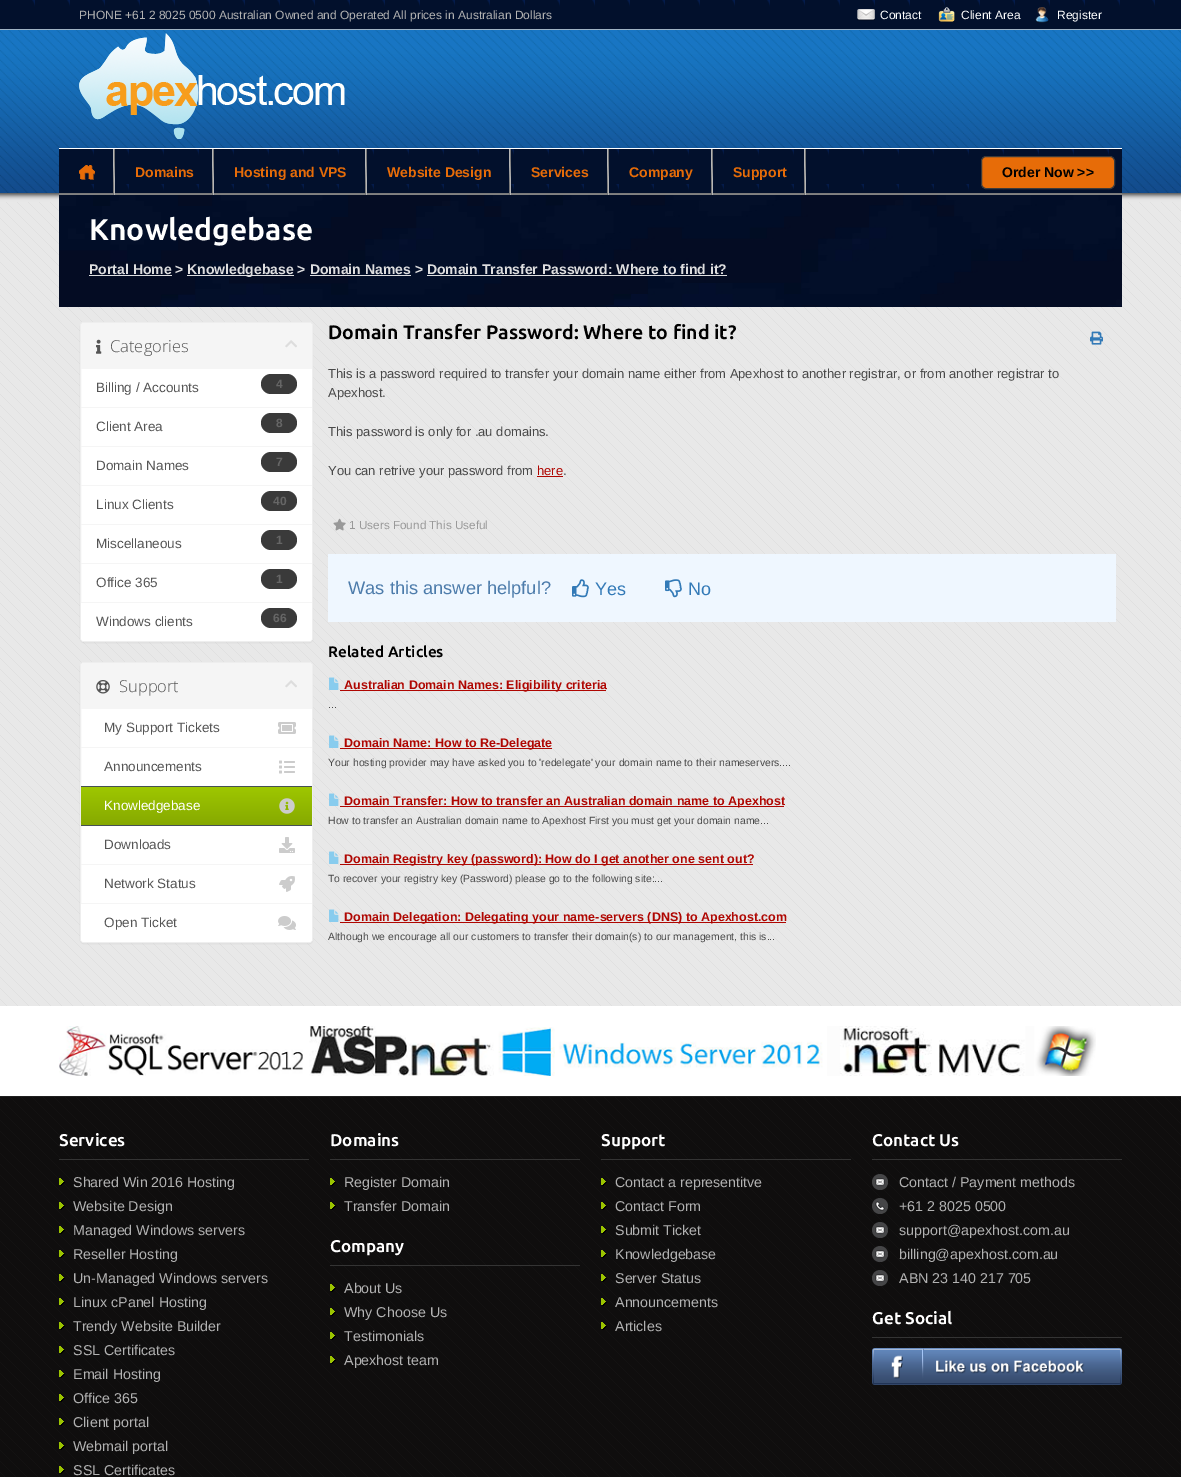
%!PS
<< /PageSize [1181 1477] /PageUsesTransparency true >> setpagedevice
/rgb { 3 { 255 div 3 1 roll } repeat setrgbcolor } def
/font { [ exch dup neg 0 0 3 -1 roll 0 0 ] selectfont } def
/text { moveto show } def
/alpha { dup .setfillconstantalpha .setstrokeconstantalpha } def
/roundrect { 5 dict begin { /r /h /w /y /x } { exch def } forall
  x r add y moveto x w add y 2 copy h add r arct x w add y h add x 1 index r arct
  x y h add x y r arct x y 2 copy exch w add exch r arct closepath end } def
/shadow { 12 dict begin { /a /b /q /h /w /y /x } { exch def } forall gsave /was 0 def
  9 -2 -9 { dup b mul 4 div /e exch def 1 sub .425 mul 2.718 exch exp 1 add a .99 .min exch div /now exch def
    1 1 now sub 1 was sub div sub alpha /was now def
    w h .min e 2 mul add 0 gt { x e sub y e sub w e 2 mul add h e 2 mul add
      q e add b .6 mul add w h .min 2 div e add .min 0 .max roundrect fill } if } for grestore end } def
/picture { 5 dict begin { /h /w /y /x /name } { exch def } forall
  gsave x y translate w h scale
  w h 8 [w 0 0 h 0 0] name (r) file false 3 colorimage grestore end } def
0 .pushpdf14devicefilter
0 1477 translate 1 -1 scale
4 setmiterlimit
255 255 255 rgb
0 0 1181 1477 rectfill
(img_01.rgb) 0 202 1181 804 picture
(img_02.rgb) 0 0 1181 29 picture
159 178 196 rgb
0 29 1181 1 rectfill
(img_03.rgb) 857 9 18 12 picture
(img_04.rgb) 938 7 17 16 picture
(img_05.rgb) 1035 7 14 16 picture
(img_06.rgb) 0 30 1181 172 picture
(img_07.rgb) 79 33 266 106 picture
(img_08.rgb) 59 149 1063 44 picture
255 255 255 rgb
59 148 1063 1 rectfill
123 123 123 rgb
59 193 1063 1 rectfill
(img_09.rgb) 113 149 2 46 picture
(img_10.rgb) 79 165 16 15 picture
(img_09.rgb) 212 149 2 46 picture
(img_09.rgb) 365 149 2 46 picture
(img_09.rgb) 509 149 2 46 picture
(img_09.rgb) 607 149 2 46 picture
(img_09.rgb) 711 149 2 46 picture
(img_09.rgb) 804 149 2 46 picture
231 108 8 rgb
981.5 156.5 133 32 4.5 roundrect gsave fill grestore
59 59 59 rgb
stroke
(img_11.rgb) 59 195 1063 112 picture
222 222 223 rgb
89 275 83 1 rectfill
187 275 107 1 rectfill
310 275 101 1 rectfill
427 275 300 1 rectfill
0 0 0 rgb
80 323 233 320 4 0.5 0.05 shadow
255 255 255 rgb
80.5 322.5 232 319 3.5 roundrect gsave fill grestore
238 238 238 rgb
stroke
245 245 245 rgb
84 323 moveto 225 0 rlineto 1.5 0 3 1.5 3 3 rcurveto 0 43 rlineto -231 0 rlineto 0 -43 rlineto 0 -1.5 1.5 -3 3 -3 rcurveto closepath fill
(img_12.rgb) 96 339 6 15 picture
(img_13.rgb) 285 340 12 8 picture
81 407 231 1 rectfill
58 58 58 rgb
261 374 36 20 10 roundrect fill
245 245 245 rgb
81 446 231 1 rectfill
58 58 58 rgb
261 413 36 20 10 roundrect fill
245 245 245 rgb
81 485 231 1 rectfill
58 58 58 rgb
261 452 36 20 10 roundrect fill
245 245 245 rgb
81 524 231 1 rectfill
58 58 58 rgb
261 491 36 20 10 roundrect fill
245 245 245 rgb
81 563 231 1 rectfill
58 58 58 rgb
261 530 36 20 10 roundrect fill
261 569 36 20 10 roundrect fill
255 255 255 rgb
81 602 moveto 231 0 rlineto 0 36 rlineto 0 1.5 -1.5 3 -3 3 rcurveto -225 0 rlineto -1.5 0 -3 -1.5 -3 -3 rcurveto closepath fill
245 245 245 rgb
81 602 231 1 rectfill
58 58 58 rgb
261 608 36 20 10 roundrect fill
(img_14.rgb) 1090 331 13 14 picture
175 6 1 rgb
537 476 26 1 rectfill
(img_15.rgb) 333 518 13 13 picture
239 247 255 rgb
328 554 788 68 rectfill
(img_16.rgb) 572 579 17 19 picture
(img_17.rgb) 665 579 17 19 picture
(img_18.rgb) 329 677 10 13 picture
175 6 1 rgb
340 690 266 1 rectfill
(img_19.rgb) 329 735 10 13 picture
340 748 212 1 rectfill
(img_20.rgb) 329 793 10 13 picture
340 806 444 1 rectfill
(img_21.rgb) 329 851 10 13 picture
340 864 413 1 rectfill
(img_22.rgb) 329 909 10 13 picture
340 922 446 1 rectfill
0 0 0 rgb
80 663 233 281 4 0.5 0.05 shadow
255 255 255 rgb
80.5 662.5 232 280 3.5 roundrect gsave fill grestore
238 238 238 rgb
stroke
245 245 245 rgb
84 663 moveto 225 0 rlineto 1.5 0 3 1.5 3 3 rcurveto 0 43 rlineto -231 0 rlineto 0 -43 rlineto 0 -1.5 1.5 -3 3 -3 rcurveto closepath fill
(img_23.rgb) 96 680 14 14 picture
(img_13.rgb) 285 680 12 8 picture
81 747 231 1 rectfill
(img_24.rgb) 278 722 18 12 picture
(img_25.rgb) 279 760 16 14 picture
gsave 81 787 moveto 231 0 rlineto 0 38 rlineto -231 0 rlineto closepath clip newpath
<< /ShadingType 2 /ColorSpace /DeviceRGB /Coords [197 787 197 825] /Extend [true true] /Function << /FunctionType 2 /Domain [0 1] /C0 [0.62 0.78 0] /C1 [0.525 0.663 0] /N 1 >> >> shfill grestore
70 80 84 rgb
81 786 231 1 rectfill
81 825 231 1 rectfill
(img_26.rgb) 279 798 16 16 picture
245 245 245 rgb
81 864 231 1 rectfill
(img_27.rgb) 279 837 16 16 picture
(img_28.rgb) 279 876 16 16 picture
255 255 255 rgb
81 903 moveto 231 0 rlineto 0 36 rlineto 0 1.5 -1.5 3 -3 3 rcurveto -225 0 rlineto -1.5 0 -3 -1.5 -3 -3 rcurveto closepath fill
245 245 245 rgb
81 903 231 1 rectfill
(img_29.rgb) 278 916 18 14 picture
(img_30.rgb) 59 1026 1037 50 picture
(img_31.rgb) 0 1097 1181 380 picture
31 31 31 rgb
0 1096 1181 1 rectfill
52 52 52 rgb
59 1159 250 1 rectfill
(img_32.rgb) 59 1178 6 8 picture
(img_33.rgb) 59 1202 6 8 picture
(img_34.rgb) 59 1226 6 8 picture
(img_35.rgb) 59 1250 6 8 picture
(img_36.rgb) 59 1274 6 8 picture
(img_37.rgb) 59 1298 6 8 picture
(img_38.rgb) 59 1322 6 8 picture
(img_39.rgb) 59 1346 6 8 picture
(img_40.rgb) 59 1370 6 8 picture
(img_33.rgb) 59 1394 6 8 picture
(img_41.rgb) 59 1418 6 8 picture
(img_32.rgb) 59 1442 6 8 picture
(img_33.rgb) 59 1466 6 8 picture
330 1159 250 1 rectfill
(img_34.rgb) 330 1178 6 8 picture
(img_35.rgb) 330 1202 6 8 picture
330 1265 250 1 rectfill
(img_32.rgb) 330 1284 6 8 picture
(img_33.rgb) 330 1308 6 8 picture
(img_34.rgb) 330 1332 6 8 picture
(img_35.rgb) 330 1356 6 8 picture
601 1159 250 1 rectfill
(img_36.rgb) 601 1178 6 8 picture
(img_37.rgb) 601 1202 6 8 picture
(img_38.rgb) 601 1226 6 8 picture
(img_39.rgb) 601 1250 6 8 picture
(img_40.rgb) 601 1274 6 8 picture
(img_33.rgb) 601 1298 6 8 picture
(img_41.rgb) 601 1322 6 8 picture
872 1159 250 1 rectfill
(img_42.rgb) 872 1174 16 16 picture
(img_43.rgb) 872 1198 16 16 picture
(img_44.rgb) 872 1222 16 16 picture
(img_45.rgb) 872 1246 16 16 picture
(img_46.rgb) 872 1270 16 16 picture
872 1337 250 1 rectfill
(img_47.rgb) 872 1348 250 37 picture
/LiberationSans-Regular 12 font
178 178 178 rgb
(PHONE +61 2 8025 0500 Australian Owned and Operated All prices in Australian Dollars) 79 19 text
255 255 255 rgb
(Contact) 880 19 text
(Client Area) 961 19 text
(Register) 1057 19 text
/LiberationSans-Bold 14 font
231 108 8 rgb
(Domains) 135 177 text
(Hosting and VPS) 234 177 text
(Website Design) 387 177 text
(Services) 531 177 text
(Company) 629 177 text
(Support) 733 177 text
0 0 0 rgb
(Order Now >>) 1002 177 text
/Ubuntu-Bold 30 font
255 255 255 rgb
(Knowledgebase) 89 240 text
/LiberationSans-Bold 14 font
222 222 223 rgb
(Portal Home >) 89 274 text
(Knowledgebase > Domain Names > Domain Transfer Password: Where to find it?) 187 274 text
/OpenSans-Light 16.5 font
85 85 85 rgb
(Categories) 110 352 text
/LiberationSans-Regular 13.5 font
(Billing / Accounts) 96 392 text
/LiberationSans-Bold 12 font
102 102 102 rgb
(4) 276 388 text
/LiberationSans-Regular 13.5 font
85 85 85 rgb
(Client Area) 96 431 text
/LiberationSans-Bold 12 font
102 102 102 rgb
(8) 276 427 text
/LiberationSans-Regular 13.5 font
85 85 85 rgb
(Domain Names) 96 470 text
/LiberationSans-Bold 12 font
102 102 102 rgb
(7) 276 466 text
/LiberationSans-Regular 13.5 font
85 85 85 rgb
(Linux Clients) 96 509 text
/LiberationSans-Bold 12 font
102 102 102 rgb
(40) 273 505 text
/LiberationSans-Regular 13.5 font
85 85 85 rgb
(Miscellaneous) 96 548 text
/LiberationSans-Bold 12 font
102 102 102 rgb
(1) 276 544 text
/LiberationSans-Regular 13.5 font
85 85 85 rgb
(Office 365) 96 587 text
/LiberationSans-Bold 12 font
102 102 102 rgb
(1) 276 583 text
/LiberationSans-Regular 13.5 font
85 85 85 rgb
(Windows clients) 96 626 text
/LiberationSans-Bold 12 font
102 102 102 rgb
(66) 273 622 text
/Ubuntu-Bold 19.5 font
0 0 0 rgb
(Domain Transfer Password: Where to find it?) 328 339 text
/LiberationSans-Regular 13 font
73 73 73 rgb
(This is a password required to transfer your domain name either from Apexhost to another registrar, or from another registrar to) 328 378 text
(Apexhost.) 328 397 text
(This password is only for .au domains.) 328 436 text
(You can retrive your password from) 328 475 text
175 6 1 rgb
(here) 537 475 text
73 73 73 rgb
(.) 563 475 text
/LiberationSans-Regular 11.75 font
153 153 153 rgb
(1 Users Found This Useful) 349 529 text
/LiberationSans-Regular 18.25 font
77 124 171 rgb
(Was this answer helpful?) 348 594 text
/LiberationSans-Regular 18 font
51 122 183 rgb
(Yes) 595 595 text
(No) 688 595 text
/Ubuntu-Bold 15.25 font
0 0 0 rgb
(Related Articles) 328 657 text
/LiberationSans-Bold 12.5 font
175 6 1 rgb
(Australian Domain Names: Eligibility criteria) 344 689 text
/LiberationSans-Regular 10.4 font
73 73 73 rgb
(...) 328 708 text
/LiberationSans-Bold 12.5 font
175 6 1 rgb
(Domain Name: How to Re-Delegate) 344 747 text
/LiberationSans-Regular 10.4 font
73 73 73 rgb
(Your hosting provider may have asked you to 'redelegate' your domain name to their nameservers....) 328 766 text
/LiberationSans-Bold 12.5 font
175 6 1 rgb
(Domain Transfer: How to transfer an Australian domain name to Apexhost) 344 805 text
/LiberationSans-Regular 10.4 font
73 73 73 rgb
(How to transfer an Australian domain name to Apexhost First you must get your domain name...) 328 824 text
/LiberationSans-Bold 12.5 font
175 6 1 rgb
(Domain Registry key \(password\): How do I get another one sent out?) 344 863 text
/LiberationSans-Regular 10.4 font
73 73 73 rgb
(To recover your registry key \(Password\) please go to the following site:...) 328 882 text
/LiberationSans-Bold 12.5 font
175 6 1 rgb
(Domain Delegation: Delegating your name-servers \(DNS\) to Apexhost.com) 344 921 text
/LiberationSans-Regular 10.4 font
73 73 73 rgb
(Although we encourage all our customers to transfer their domain\(s\) to our management, this is...) 328 940 text
/OpenSans-Light 16.5 font
85 85 85 rgb
(Support) 119 692 text
/LiberationSans-Regular 13.5 font
(My Support Tickets) 104 732 text
(Announcements) 104 771 text
255 255 255 rgb
(Knowledgebase) 104 810 text
85 85 85 rgb
(Downloads) 104 849 text
(Network Status) 104 888 text
(Open Ticket) 104 927 text
/Ubuntu-Bold 17 font
255 255 255 rgb
(Services) 59 1146 text
/LiberationSans-Regular 14.25 font
178 178 178 rgb
(Shared Win 2016 Hosting) 73 1187 text
(Website Design) 73 1211 text
(Managed Windows servers) 73 1235 text
(Reseller Hosting) 73 1259 text
(Un-Managed Windows servers) 73 1283 text
(Linux cPanel Hosting) 73 1307 text
(Trendy Website Builder) 73 1331 text
(SSL Certificates) 73 1355 text
(Email Hosting) 73 1379 text
(Office 365) 73 1403 text
(Client portal) 73 1427 text
(Webmail portal) 73 1451 text
(SSL Certificates) 73 1475 text
/Ubuntu-Bold 17 font
255 255 255 rgb
(Domains) 330 1146 text
/LiberationSans-Regular 14.25 font
178 178 178 rgb
(Register Domain) 344 1187 text
(Transfer Domain) 344 1211 text
/Ubuntu-Bold 17 font
255 255 255 rgb
(Company) 330 1252 text
/LiberationSans-Regular 14.25 font
178 178 178 rgb
(About Us) 344 1293 text
(Why Choose Us) 344 1317 text
(Testimonials) 344 1341 text
(Apexhost team) 344 1365 text
/Ubuntu-Bold 17 font
255 255 255 rgb
(Support) 601 1146 text
/LiberationSans-Regular 14.25 font
178 178 178 rgb
(Contact a representitve) 615 1187 text
(Contact Form) 615 1211 text
(Submit Ticket) 615 1235 text
(Knowledgebase) 615 1259 text
(Server Status) 615 1283 text
(Announcements) 615 1307 text
(Articles) 615 1331 text
/Ubuntu-Bold 17 font
255 255 255 rgb
(Contact Us) 872 1146 text
/LiberationSans-Regular 14.25 font
178 178 178 rgb
(Contact / Payment methods) 899 1187 text
(+61 2 8025 0500) 899 1211 text
(support@apexhost.com.au) 899 1235 text
(billing@apexhost.com.au) 899 1259 text
(ABN 23 140 217 705) 899 1283 text
/Ubuntu-Bold 17 font
255 255 255 rgb
(Get Social) 872 1324 text
.poppdf14devicefilter showpage
